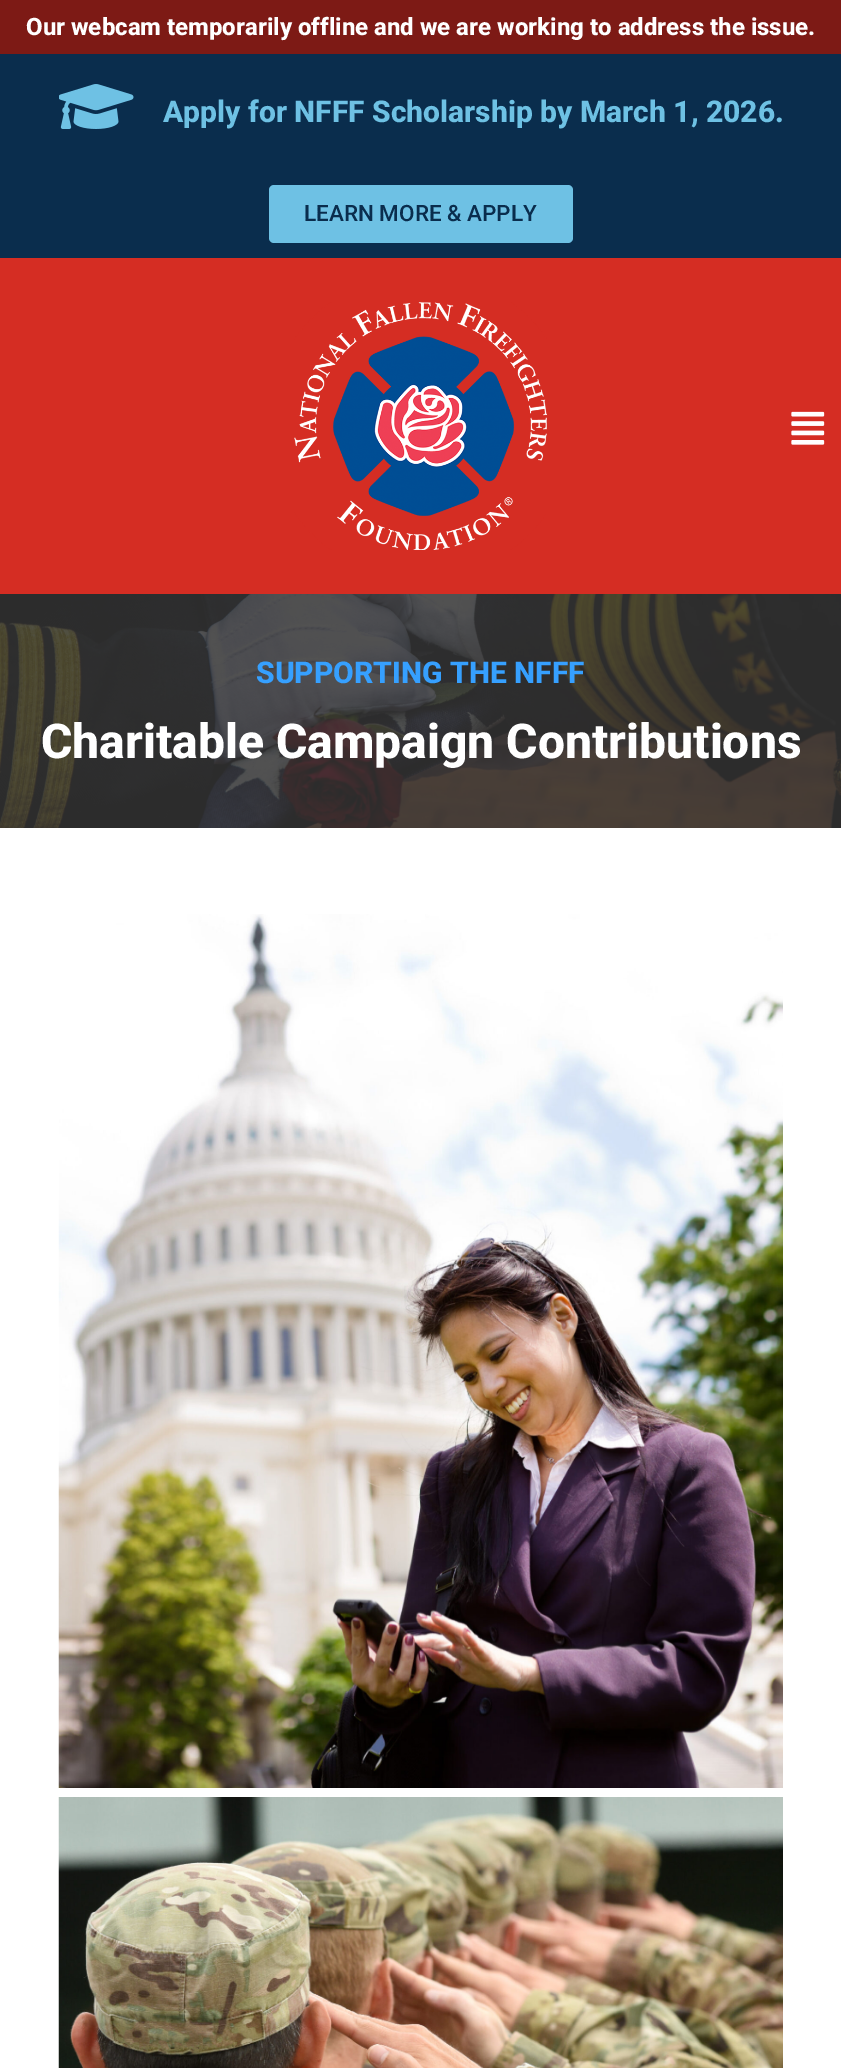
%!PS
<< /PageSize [841 2068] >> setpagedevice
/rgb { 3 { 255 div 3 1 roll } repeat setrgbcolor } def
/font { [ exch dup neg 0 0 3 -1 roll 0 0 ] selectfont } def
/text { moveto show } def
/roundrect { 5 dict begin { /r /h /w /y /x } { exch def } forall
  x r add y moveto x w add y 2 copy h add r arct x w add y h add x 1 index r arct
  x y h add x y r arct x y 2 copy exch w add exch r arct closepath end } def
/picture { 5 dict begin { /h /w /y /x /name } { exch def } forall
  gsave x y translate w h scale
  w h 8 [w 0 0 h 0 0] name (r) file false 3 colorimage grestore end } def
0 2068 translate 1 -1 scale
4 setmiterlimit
255 255 255 rgb
0 0 841 2068 rectfill
125 26 21 rgb
0 0 841 54 rectfill
10 45 77 rgb
0 54 841 204 rectfill
(img_01.rgb) 59 84 75 45 picture
110 193 228 rgb
269 185 304 58 5 roundrect fill
213 45 35 rgb
0 258 841 336 rectfill
(img_02.rgb) 294 302 253 248 picture
(img_03.rgb) 791 411 34 34 picture
(img_04.rgb) 0 594 841 234 picture
(img_05.rgb) 58 914 725 874 picture
(img_06.rgb) 58 1797 725 271 picture
/Roboto-ExtraBold 24 font
255 255 255 rgb
(Our webcam temporarily offline and we are working to address the issue.) 26 35 text
/Roboto-ExtraBold 30 font
110 193 228 rgb
(Apply for NFFF Scholarship by March 1, 2026.) 163 122 text
/Roboto-Medium 22.5 font
10 45 77 rgb
(LEARN MORE & APPLY) 304 221 text
/Roboto-ExtraBold 30 font
54 160 255 rgb
(SUPPORTING THE NFFF) 256 683 text
/Roboto-ExtraBold 48 font
255 255 255 rgb
(Charitable Campaign Contributions) 41 758 text
showpage
